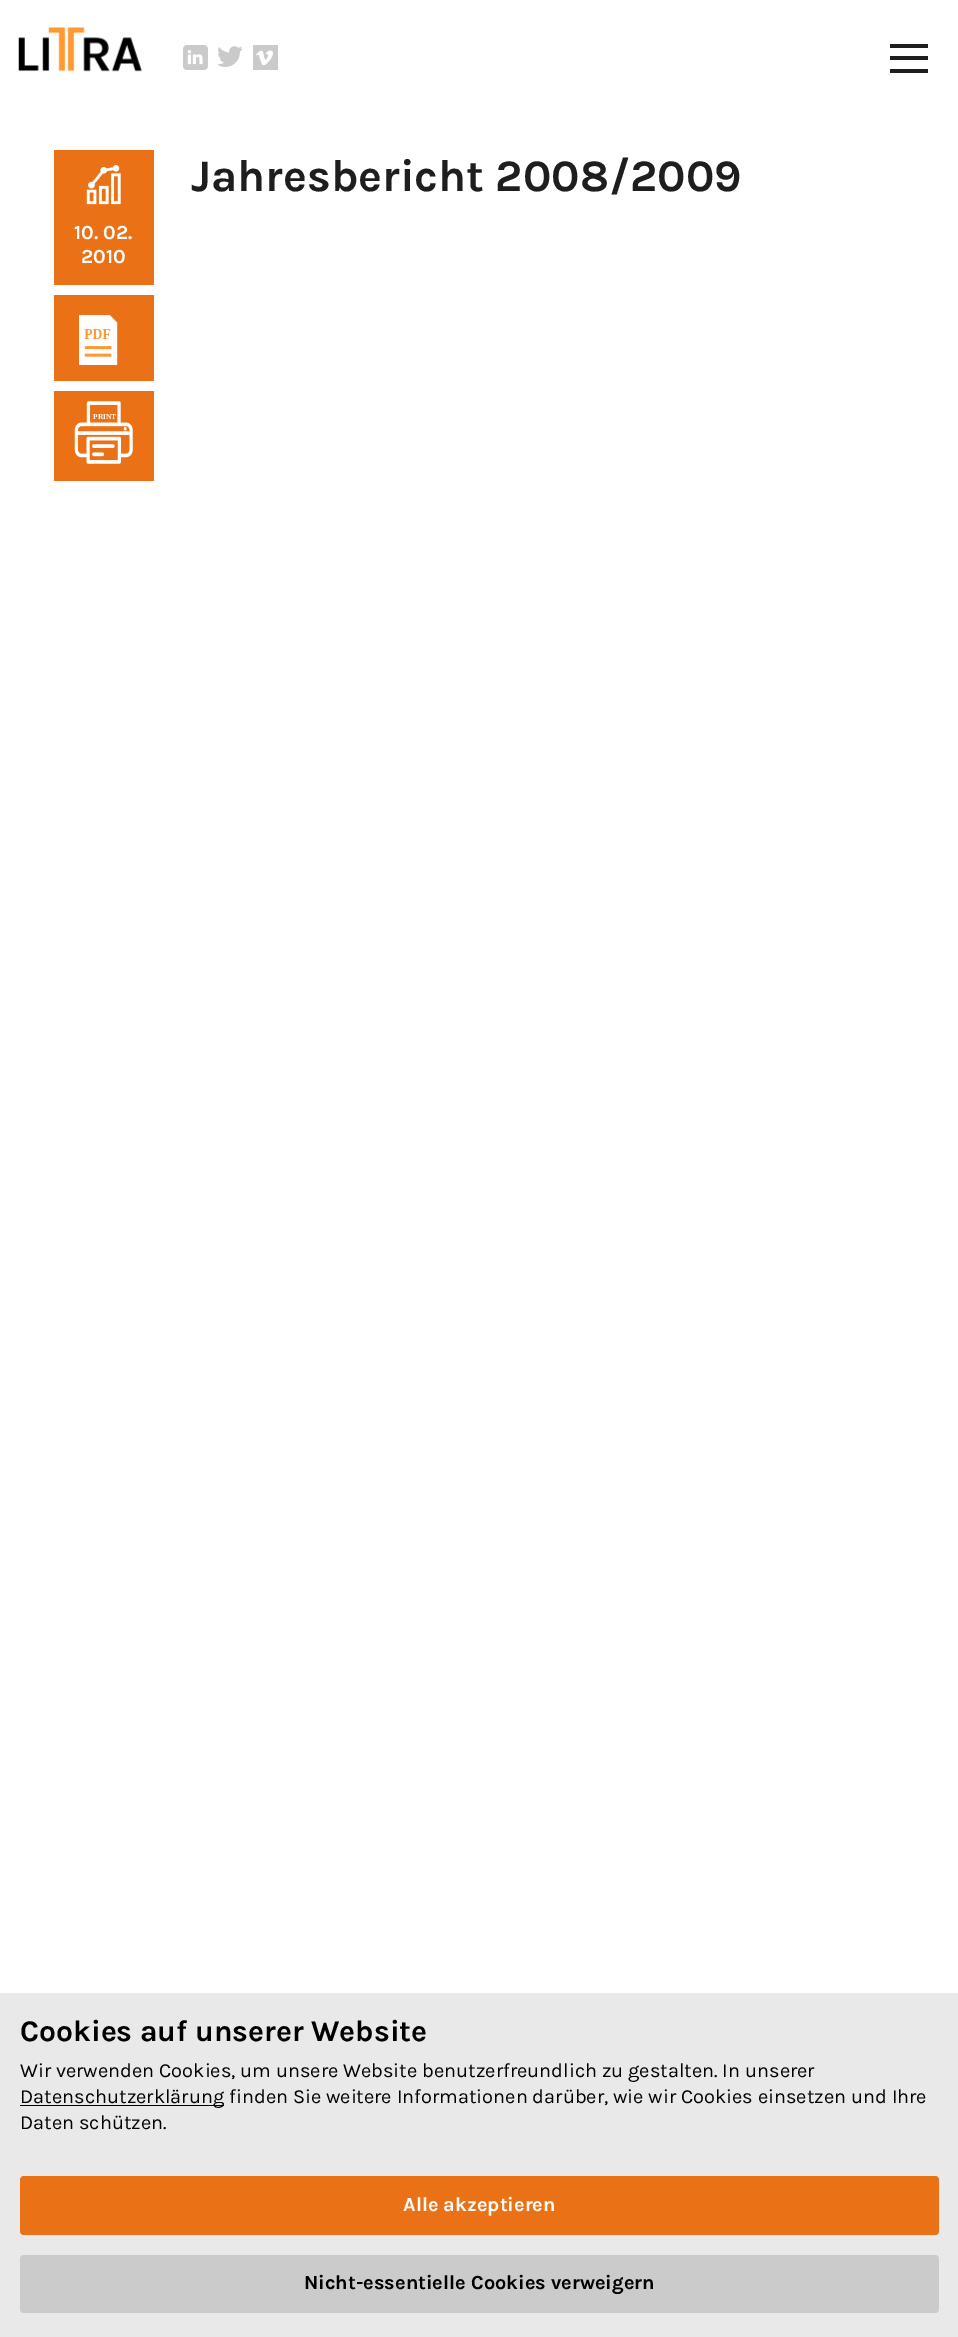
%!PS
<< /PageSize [958 2337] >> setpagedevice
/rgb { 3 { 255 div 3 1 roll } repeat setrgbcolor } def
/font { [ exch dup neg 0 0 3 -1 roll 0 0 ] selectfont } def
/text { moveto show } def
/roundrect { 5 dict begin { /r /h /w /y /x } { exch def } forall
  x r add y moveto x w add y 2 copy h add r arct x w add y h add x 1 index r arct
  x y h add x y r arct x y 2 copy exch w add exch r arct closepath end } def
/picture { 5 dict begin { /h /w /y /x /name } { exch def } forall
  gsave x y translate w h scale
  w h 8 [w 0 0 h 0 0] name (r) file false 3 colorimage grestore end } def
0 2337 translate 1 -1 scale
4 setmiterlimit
255 255 255 rgb
0 0 958 2337 rectfill
(img_01.rgb) 18 27 124 45 picture
(img_02.rgb) 183 45 25 25 picture
(img_03.rgb) 218 46 25 21 picture
(img_04.rgb) 253 45 25 25 picture
30 30 30 rgb
890 56 38 4 rectfill
890 44 38 4 rectfill
890 69 38 4 rectfill
234 113 22 rgb
54 150 100 135 rectfill
(img_05.rgb) 86 165 35 40 picture
54 295 100 86 rectfill
(img_06.rgb) 79 315 39 50 picture
54 391 100 90 rectfill
(img_07.rgb) 74 401 59 63 picture
233 233 233 rgb
0 1993 958 344 rectfill
0 0 0 rgb
20 2105 204 1 rectfill
234 113 22 rgb
20 2176 919 59 4 roundrect fill
203 203 203 rgb
20 2255 919 58 4 roundrect fill
/Karla-Bold 45 font
30 30 30 rgb
(Jahresbericht 2008/2009) 191 191 text
/Karla-Bold 20 font
255 255 255 rgb
(10. 02.) 74 239 text
(2010) 81 263 text
/LiberationSerif-Bold 7.5 font
(PRINT) 93 419 text
/Karla-Bold 30 font
0 0 0 rgb
(Cookies auf unserer Website) 20 2041 text
/Karla-Regular 20 font
(Wir verwenden Cookies, um unsere Website benutzerfreundlich zu gestalten. In unserer) 20 2077 text
(Datenschutzerklärung finden Sie weitere Informationen darüber, wie wir Cookies einsetzen und Ihre) 20 2103 text
(Daten schützen.) 20 2129 text
/Karla-Bold 20 font
255 255 255 rgb
(Alle akzeptieren) 403 2211 text
0 0 0 rgb
(Nicht-essentielle Cookies verweigern) 304 2289 text
showpage
